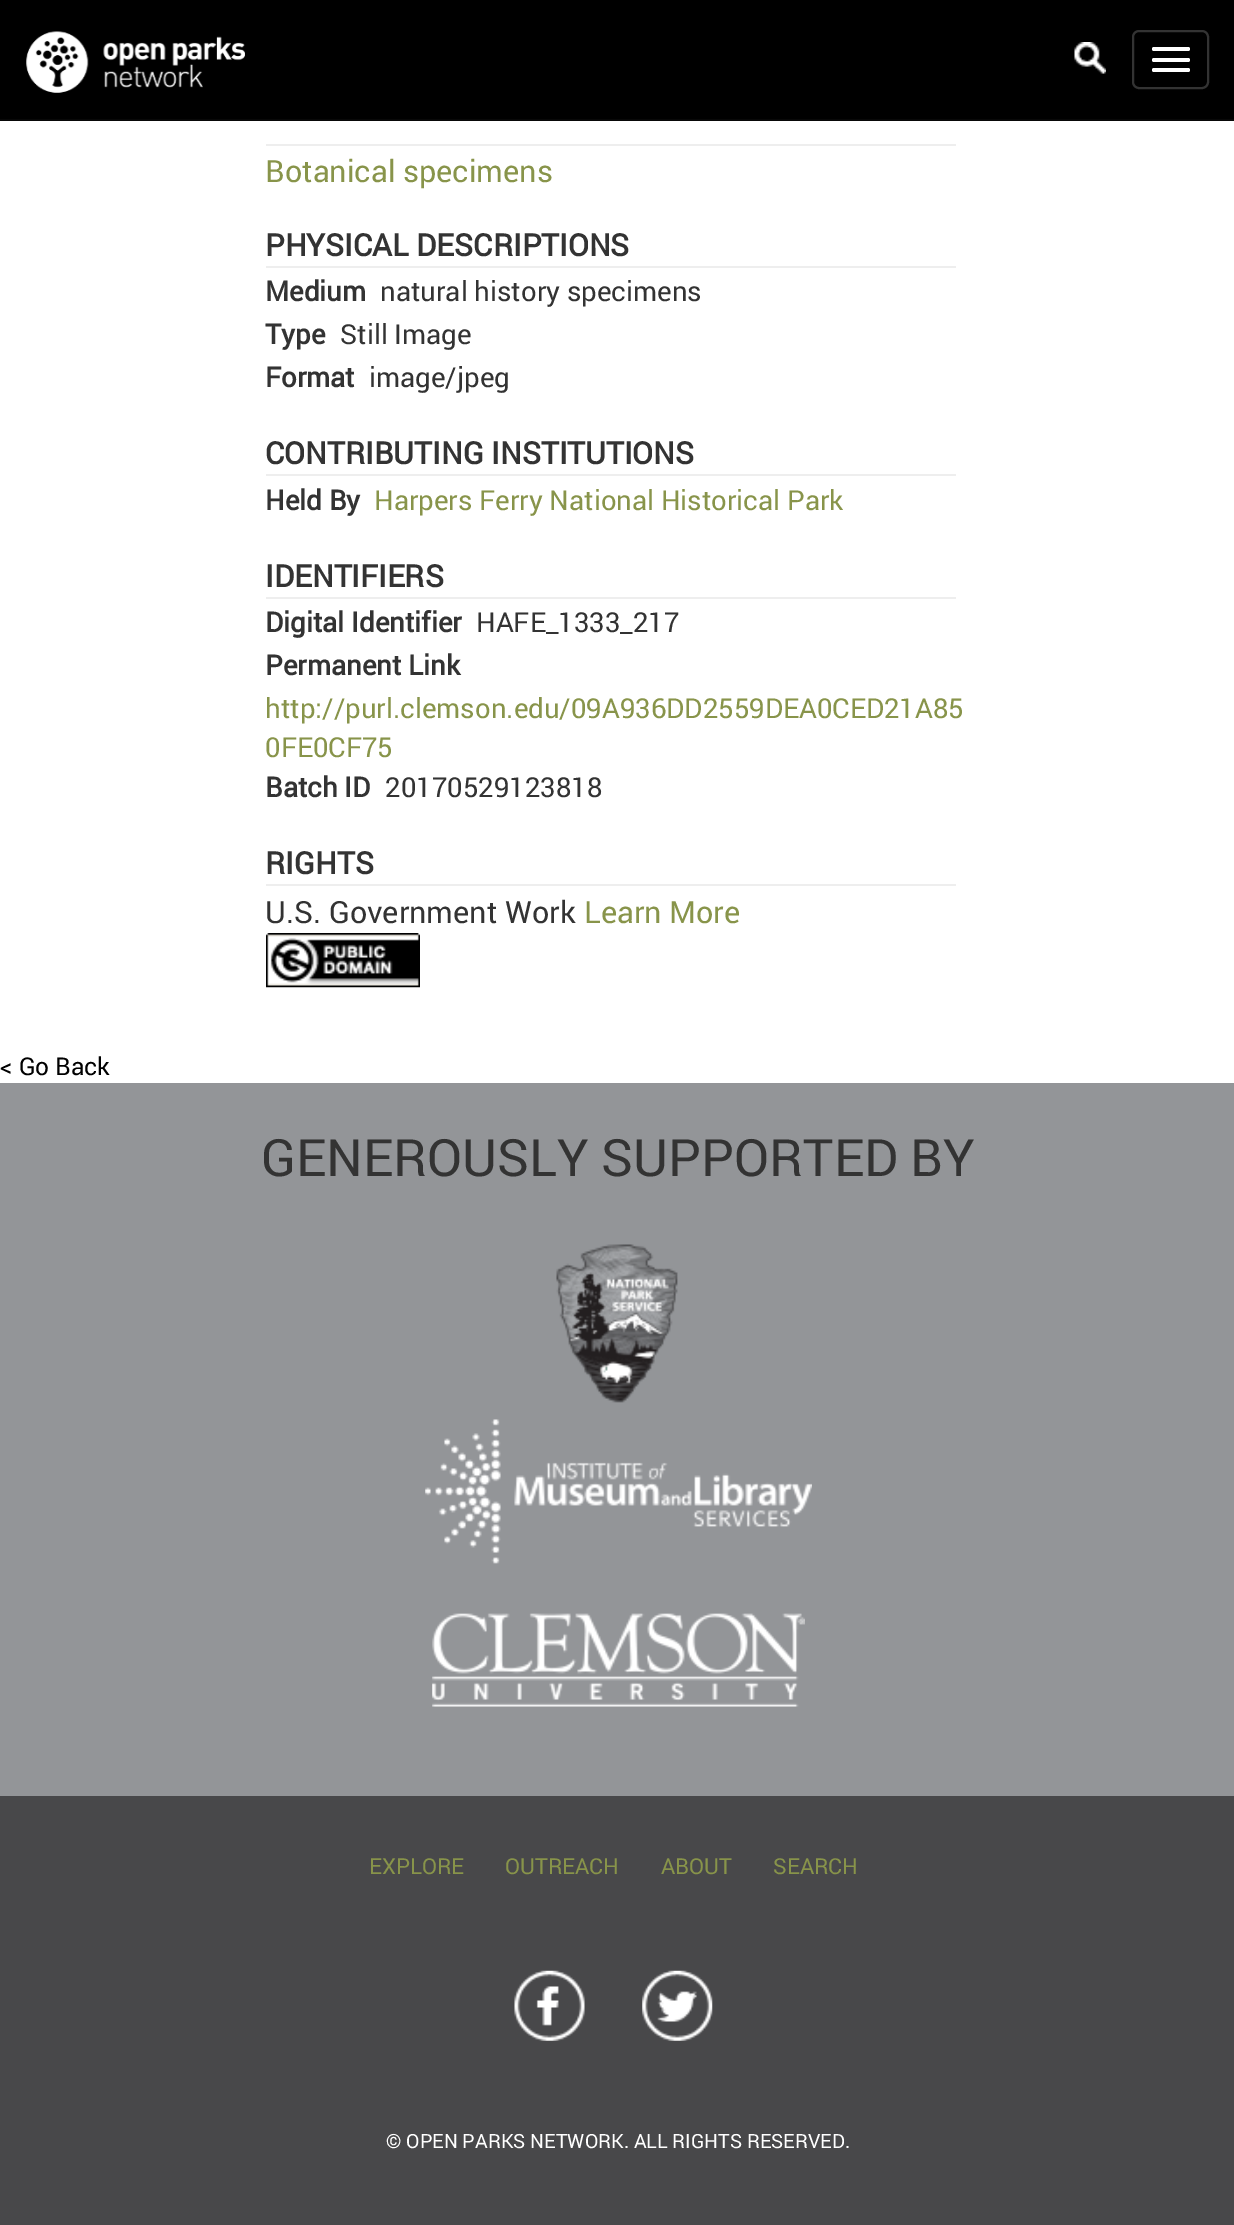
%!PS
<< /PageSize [1234 2225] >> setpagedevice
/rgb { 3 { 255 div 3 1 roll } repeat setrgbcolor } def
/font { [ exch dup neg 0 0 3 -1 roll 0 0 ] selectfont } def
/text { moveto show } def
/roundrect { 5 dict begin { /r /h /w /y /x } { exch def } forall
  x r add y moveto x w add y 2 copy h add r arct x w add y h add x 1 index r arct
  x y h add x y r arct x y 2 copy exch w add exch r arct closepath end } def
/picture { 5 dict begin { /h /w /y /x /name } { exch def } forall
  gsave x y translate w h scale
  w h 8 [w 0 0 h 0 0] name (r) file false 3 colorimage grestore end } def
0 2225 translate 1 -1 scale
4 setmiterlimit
255 255 255 rgb
0 0 1234 2225 rectfill
0 0 0 rgb
0 0 1234 119 rectfill
8 8 8 rgb
0 119 1234 2 rectfill
(img_01.rgb) 26 31 219 62 picture
(img_02.rgb) 1074 42 32 32 picture
51 51 51 rgb
2 setlinewidth
1133 31 75 57 6 roundrect stroke
255 255 255 rgb
1152 47 38 4 2 roundrect fill
1152 58 38 4 2 roundrect fill
1152 68 38 4 2 roundrect fill
238 238 238 rgb
266 144 690 2 rectfill
266 266 690 2 rectfill
266 474 690 2 rectfill
266 597 690 2 rectfill
266 884 690 2 rectfill
(img_03.rgb) 266 933 154 55 picture
147 149 152 rgb
0 1083 1234 713 rectfill
(img_04.rgb) 556 1244 122 159 picture
(img_05.rgb) 425 1419 387 145 picture
(img_06.rgb) 432 1613 373 94 picture
72 72 74 rgb
0 1796 1234 429 rectfill
(img_07.rgb) 514 1970 71 71 picture
(img_08.rgb) 642 1970 71 71 picture
/Roboto-Regular 30.6 font
136 148 74 rgb
(Botanical specimens) 265 182 text
/Roboto-Bold 30.6 font
51 51 51 rgb
(PHYSICAL DESCRIPTIONS) 265 256 text
/Roboto-Bold 27.55 font
(Medium) 265 301 text
/Roboto-Regular 27.55 font
(natural history specimens) 380 301 text
/Roboto-Bold 27.55 font
(Type) 265 344 text
/Roboto-Regular 27.55 font
(Still Image) 340 344 text
/Roboto-Bold 27.55 font
(Format) 265 387 text
/Roboto-Regular 27.55 font
(image/jpeg) 369 387 text
/Roboto-Bold 30.6 font
(CONTRIBUTING INSTITUTIONS) 265 464 text
/Roboto-Bold 27.55 font
(Held By) 265 510 text
/Roboto-Regular 27.55 font
136 148 74 rgb
(Harpers Ferry National Historical Park) 374 510 text
/Roboto-Bold 30.6 font
51 51 51 rgb
(IDENTIFIERS) 265 587 text
/Roboto-Bold 27.55 font
(Digital Identifier) 265 632 text
/Roboto-Regular 27.55 font
(HAFE_1333_217) 476 632 text
/Roboto-Bold 27.55 font
(Permanent Link) 265 675 text
/Roboto-Regular 27.55 font
136 148 74 rgb
(http://purl.clemson.edu/09A936DD2559DEA0CED21A85) 265 718 text
(0FE0CF75) 265 757 text
/Roboto-Bold 27.55 font
51 51 51 rgb
(Batch ID) 265 797 text
/Roboto-Regular 27.55 font
(20170529123818) 385 797 text
/Roboto-Bold 30.6 font
(RIGHTS) 265 874 text
/Roboto-Regular 30.6 font
(U.S. Government Work) 265 923 text
136 148 74 rgb
(Learn More) 584 923 text
/Roboto-Regular 24.5 font
0 0 0 rgb
(< Go Back) 0 1075 text
/Roboto-Regular 51.5 font
51 51 51 rgb
(GENEROUSLY SUPPORTED BY) 261 1176 text
/Roboto-Regular 22 font
136 148 74 rgb
(EXPLORE) 369 1874 text
(OUTREACH) 505 1874 text
(ABOUT) 661 1874 text
(SEARCH) 773 1874 text
/Roboto-Regular 19.6 font
255 255 255 rgb
(© OPEN PARKS NETWORK. ALL RIGHTS RESERVED.) 386 2148 text
showpage
